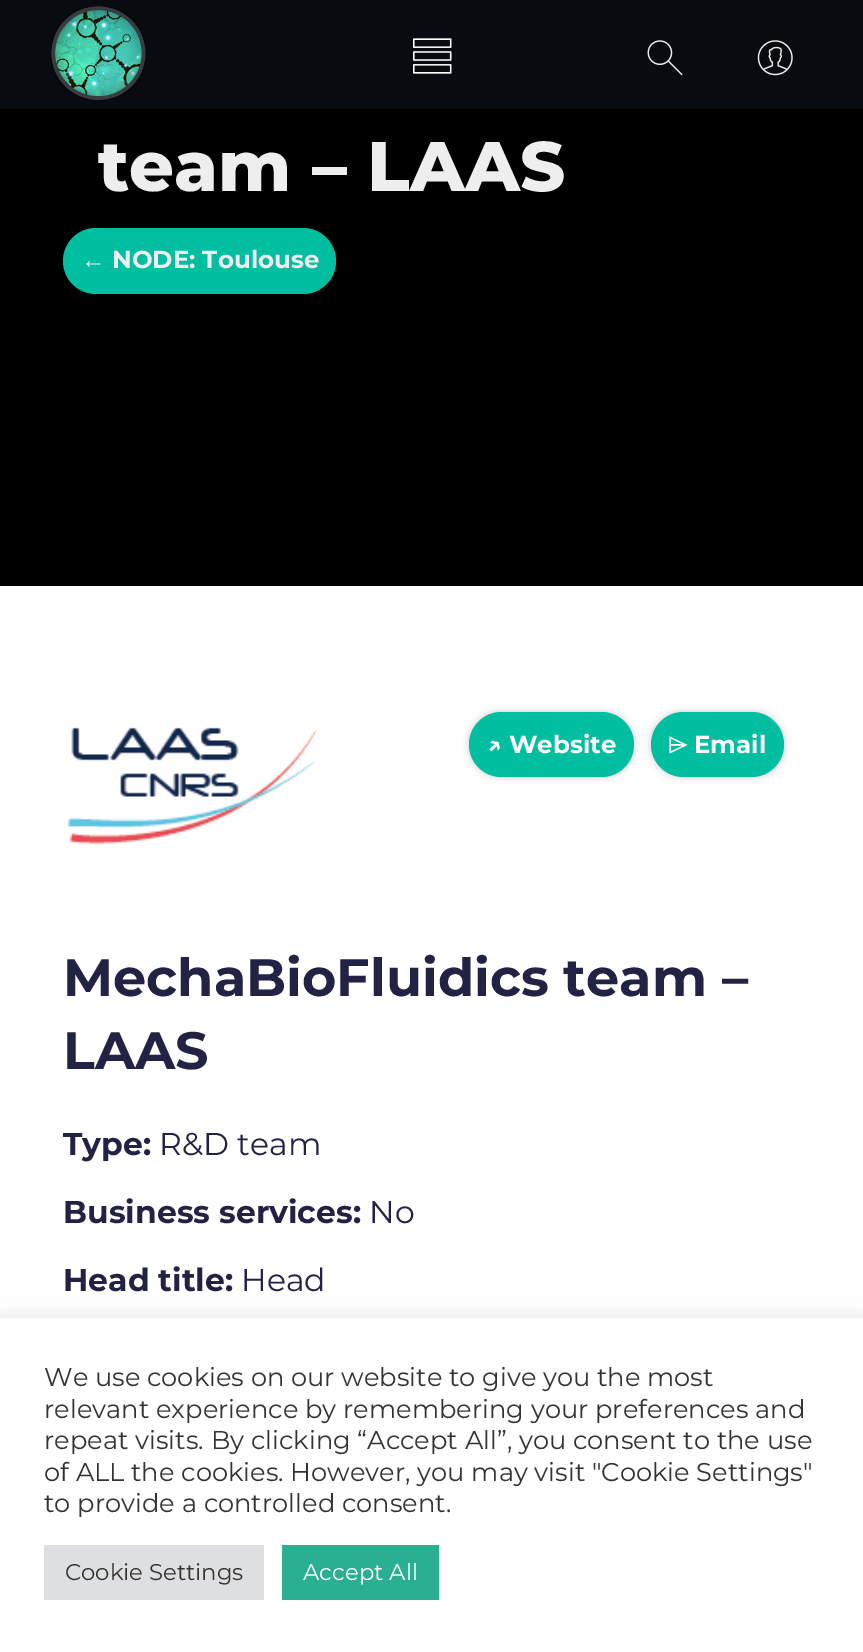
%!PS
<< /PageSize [863 1652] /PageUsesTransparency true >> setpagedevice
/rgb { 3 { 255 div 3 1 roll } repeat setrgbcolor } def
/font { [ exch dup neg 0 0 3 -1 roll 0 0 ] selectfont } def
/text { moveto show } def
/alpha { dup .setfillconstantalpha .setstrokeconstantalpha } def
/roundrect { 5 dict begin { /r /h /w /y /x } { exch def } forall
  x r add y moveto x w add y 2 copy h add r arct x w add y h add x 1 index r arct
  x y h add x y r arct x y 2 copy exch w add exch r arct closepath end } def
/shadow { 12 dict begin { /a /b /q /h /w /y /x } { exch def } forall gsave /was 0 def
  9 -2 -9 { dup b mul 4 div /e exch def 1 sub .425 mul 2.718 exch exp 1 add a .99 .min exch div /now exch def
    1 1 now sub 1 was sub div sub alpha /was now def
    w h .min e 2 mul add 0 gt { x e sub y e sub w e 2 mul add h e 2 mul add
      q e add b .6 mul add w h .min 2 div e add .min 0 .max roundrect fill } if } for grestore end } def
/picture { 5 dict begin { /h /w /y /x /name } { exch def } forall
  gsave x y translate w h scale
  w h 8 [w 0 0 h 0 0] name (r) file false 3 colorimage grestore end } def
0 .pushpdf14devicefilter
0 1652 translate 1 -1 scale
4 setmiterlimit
255 255 255 rgb
0 0 863 1652 rectfill
8 11 15 rgb
0 0 863 109 rectfill
(img_01.rgb) 51 6 95 94 picture
(img_02.rgb) 413 38 39 36 picture
(img_03.rgb) 647 40 36 36 picture
(img_04.rgb) 757 40 36 36 picture
0 0 0 rgb
0 109 863 477 rectfill
0 190 160 rgb
63 228 273 66 33 roundrect fill
(img_05.rgb) 67 727 251 118 picture
0 0 0 rgb
469 712 165 65 32.5 3.5 0.2 shadow
0 190 160 rgb
469 712 165 65 32.5 roundrect fill
0 0 0 rgb
651 712 133 65 32.5 3.5 0.2 shadow
0 190 160 rgb
651 712 133 65 32.5 roundrect fill
172 171 171 rgb
0 1316 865 334 0 9 0.3 shadow
255 255 255 rgb
0 1318 863 334 rectfill
222 223 224 rgb
44 1545 220 55 rectfill
43 175 147 rgb
282 1545 157 55 rectfill
/Montserrat-ExtraBold 70 font
238 238 238 rgb
(team – LAAS) 98 191 text
/LiberationSans-Bold 24.5 font
(←) 81 268 text
/Montserrat-Bold 24.5 font
(NODE: Toulouse) 112 268 text
/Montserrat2-Bold 24.5 font
255 255 255 rgb
(↗) 487 753 text
/Montserrat-Bold 24.5 font
(Website) 509 753 text
/FreeSerif-Bold 24.5 font
(⌲) 668 753 text
/Montserrat-Bold 24.5 font
(Email) 694 753 text
/Montserrat-Bold 52.5 font
34 34 68 rgb
(MechaBioFluidics team –) 63 996 text
(LAAS) 63 1069 text
/Montserrat-Bold 31.5 font
(Type:) 63 1155 text
/Montserrat-Regular 31.5 font
(R&D team) 159 1155 text
/Montserrat-Bold 31.5 font
(Business services:) 63 1223 text
/Montserrat-Regular 31.5 font
(No) 369 1223 text
/Montserrat-Bold 31.5 font
(Head title:) 63 1291 text
/Montserrat-Regular 31.5 font
(Head) 241 1291 text
/Montserrat-Regular 25.7 font
51 51 51 rgb
(We use cookies on our website to give you the most) 44 1386 text
(relevant experience by remembering your preferences and) 44 1418 text
(repeat visits. By clicking “Accept All”, you consent to the use) 44 1449 text
(of ALL the cookies. However, you may visit "Cookie Settings") 44 1481 text
(to provide a controlled consent.) 44 1512 text
/Montserrat-Regular 22.75 font
(Cookie Settings) 65 1580 text
255 255 255 rgb
(Accept All) 303 1580 text
.poppdf14devicefilter showpage
